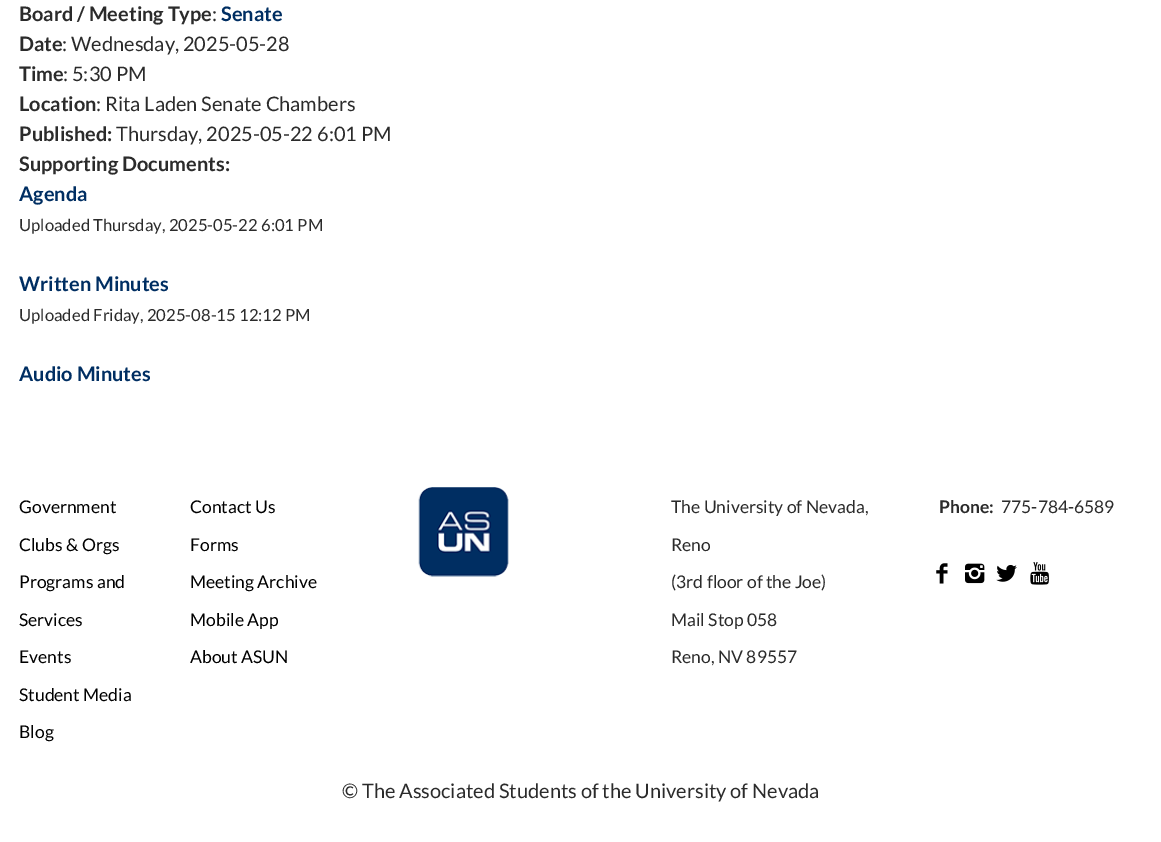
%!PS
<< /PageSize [1161 842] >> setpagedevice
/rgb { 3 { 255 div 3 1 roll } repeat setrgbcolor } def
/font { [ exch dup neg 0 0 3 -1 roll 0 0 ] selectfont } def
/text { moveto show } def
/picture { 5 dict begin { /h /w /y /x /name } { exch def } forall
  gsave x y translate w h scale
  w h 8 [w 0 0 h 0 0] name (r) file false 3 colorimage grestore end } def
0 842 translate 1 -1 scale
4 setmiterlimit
255 255 255 rgb
0 0 1161 842 rectfill
(img_01.rgb) 418 487 91 90 picture
(img_02.rgb) 936 563 12 21 picture
(img_03.rgb) 965 563 20 21 picture
(img_04.rgb) 996 565 21 17 picture
(img_05.rgb) 1030 562 19 23 picture
/Lato-Bold 20 font
43 43 43 rgb
(Board / Meeting Type) 19 21 text
/Lato-Regular 20 font
(:) 212 21 text
/Lato-Bold 20 font
0 46 98 rgb
(Senate) 221 21 text
43 43 43 rgb
(Date) 19 51 text
/Lato-Regular 20 font
(: Wednesday, 2025-05-28) 62 51 text
/Lato-Bold 20 font
(Time) 19 81 text
/Lato-Regular 20 font
(: 5:30 PM) 63 81 text
/Lato-Bold 20 font
(Location) 19 111 text
/Lato-Regular 20 font
(: Rita Laden Senate Chambers) 96 111 text
/Lato-Bold 20 font
(Published:) 19 141 text
/Lato-Regular 20 font
(Thursday, 2025-05-22 6:01 PM) 116 141 text
/Lato-Bold 20 font
(Supporting Documents:) 19 171 text
0 46 98 rgb
(Agenda) 19 201 text
/Lato-Regular 16.7 font
43 43 43 rgb
(Uploaded Thursday, 2025-05-22 6:01 PM) 19 231 text
/Lato-Bold 20 font
0 46 98 rgb
(Written Minutes) 19 291 text
/Lato-Regular 16.7 font
43 43 43 rgb
(Uploaded Friday, 2025-08-15 12:12 PM) 19 321 text
/Lato-Bold 20 font
0 46 98 rgb
(Audio Minutes) 19 381 text
/Lato-Regular 17.5 font
0 0 0 rgb
(Government) 19 513 text
(Clubs & Orgs) 19 551 text
(Programs and) 19 588 text
(Services) 19 626 text
(Events) 19 663 text
(Student Media) 19 701 text
(Blog) 19 738 text
(Contact Us) 190 513 text
(Forms) 190 551 text
(Meeting Archive) 190 588 text
(Mobile App) 190 626 text
(About ASUN) 190 663 text
43 43 43 rgb
(The University of Nevada,) 671 513 text
(Reno) 671 551 text
(\(3rd floor of the Joe\)) 671 588 text
(Mail Stop 058) 671 626 text
(Reno, NV 89557) 671 663 text
/Lato-Bold 17.5 font
(Phone:) 939 513 text
/Lato-Regular 17.5 font
(775-784-6589) 1001 513 text
/Lato-Regular 20 font
(© The Associated Students of the University of Nevada) 342 798 text
showpage
